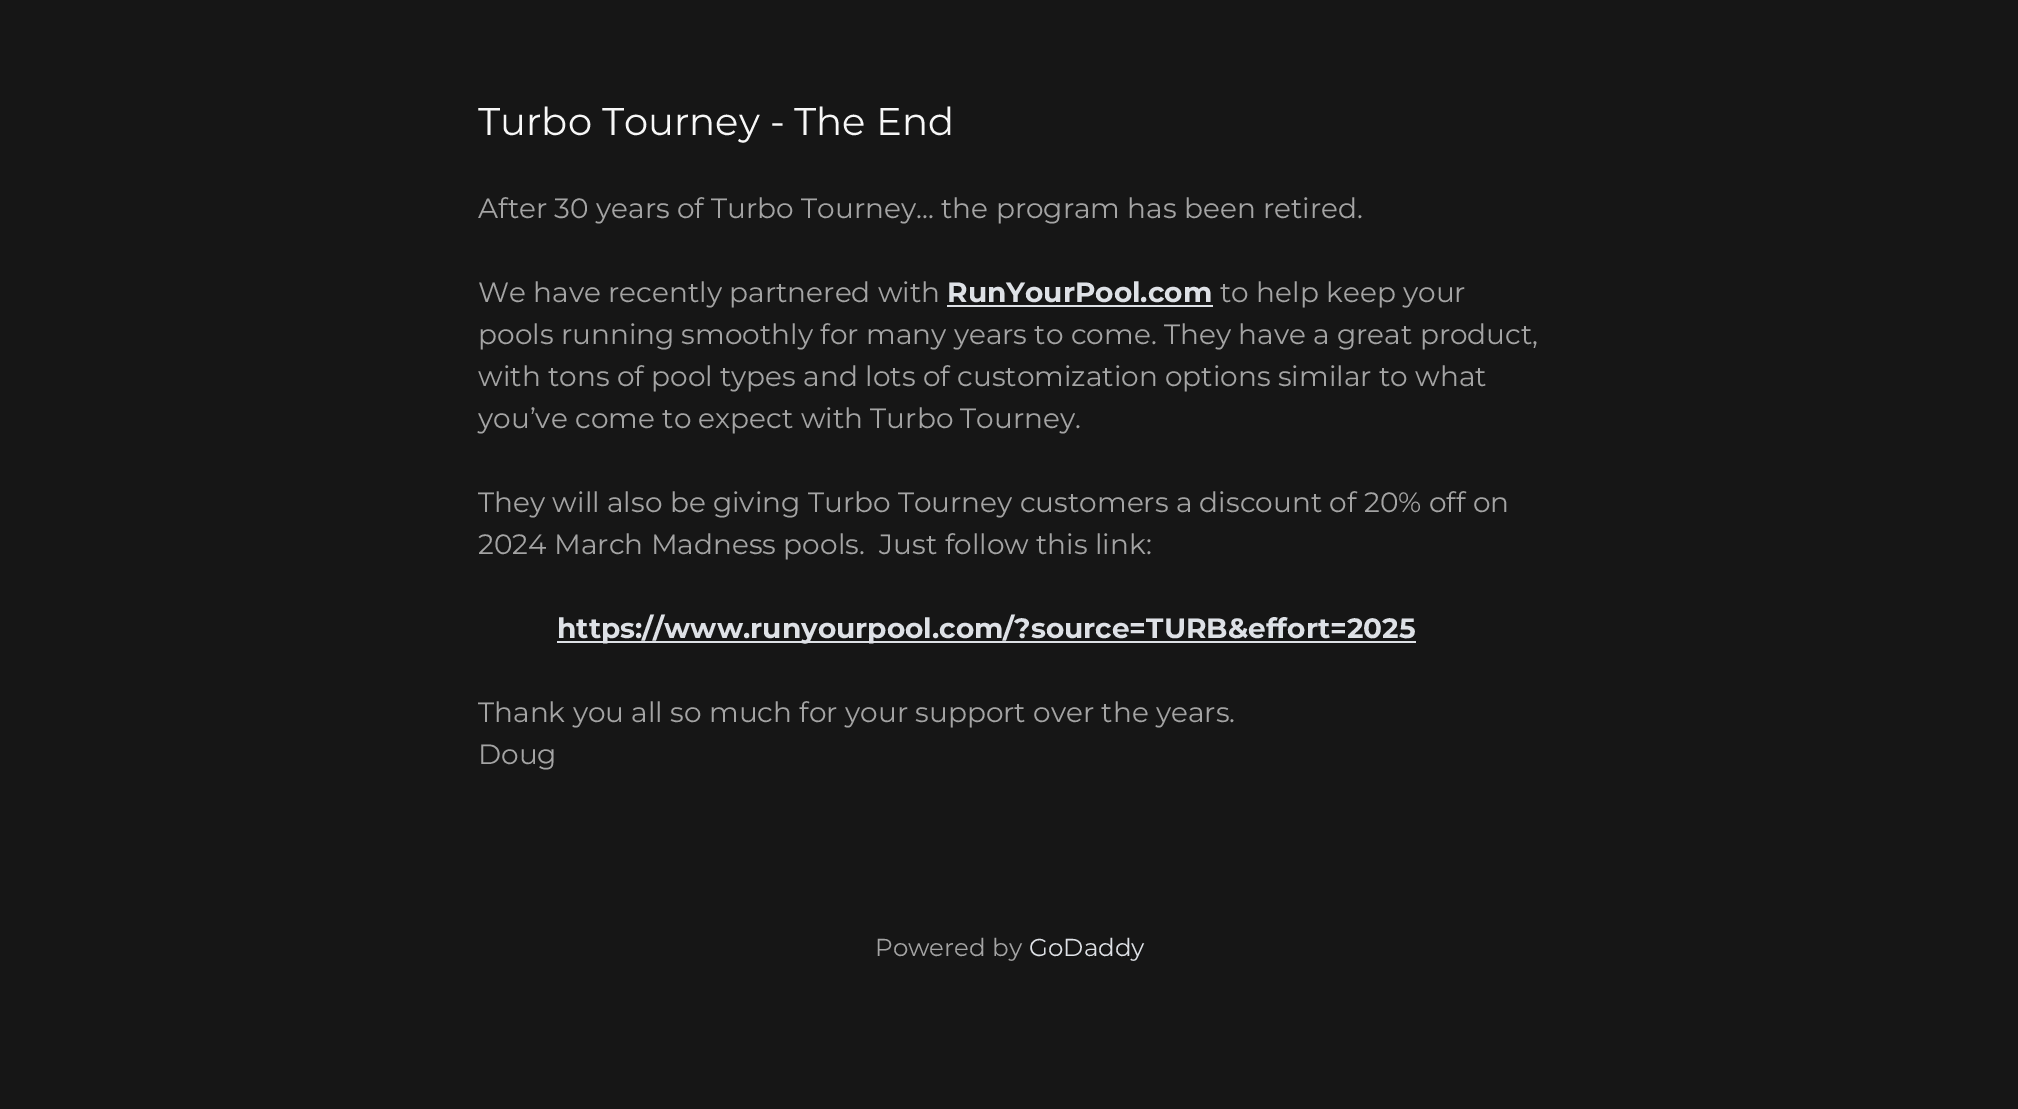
%!PS
<< /PageSize [2018 1109] >> setpagedevice
/rgb { 3 { 255 div 3 1 roll } repeat setrgbcolor } def
/font { [ exch dup neg 0 0 3 -1 roll 0 0 ] selectfont } def
/text { moveto show } def
0 1109 translate 1 -1 scale
4 setmiterlimit
22 22 22 rgb
0 0 2018 1109 rectfill
222 225 230 rgb
947 305 266 2 rectfill
557 641 859 2 rectfill
/Montserrat-Regular 38.5 font
247 247 247 rgb
(Turbo Tourney - The End) 478 135 text
/Montserrat-Regular 28 font
164 164 164 rgb
(After 30 years of Turbo Tourney... the program has been retired.) 478 218 text
(We have recently partnered with) 478 302 text
/Montserrat-Bold 28 font
222 225 230 rgb
(RunYourPool.com) 947 302 text
/Montserrat-Regular 28 font
164 164 164 rgb
(to help keep your) 1220 302 text
(pools running smoothly for many years to come. They have a great product,) 478 344 text
(with tons of pool types and lots of customization options similar to what) 478 386 text
(you’ve come to expect with Turbo Tourney.) 478 428 text
(They will also be giving Turbo Tourney customers a discount of 20% off on) 478 512 text
(2024 March Madness pools.  Just follow this link:) 478 554 text
/Montserrat-Bold 28 font
222 225 230 rgb
(https://www.runyourpool.com/?source=TURB&effort=2025) 557 638 text
/Montserrat-Regular 28 font
164 164 164 rgb
(Thank you all so much for your support over the years.) 478 722 text
(Doug) 478 764 text
/Montserrat-Regular 24.5 font
(Powered by) 875 956 text
222 225 230 rgb
(GoDaddy) 1029 956 text
showpage
